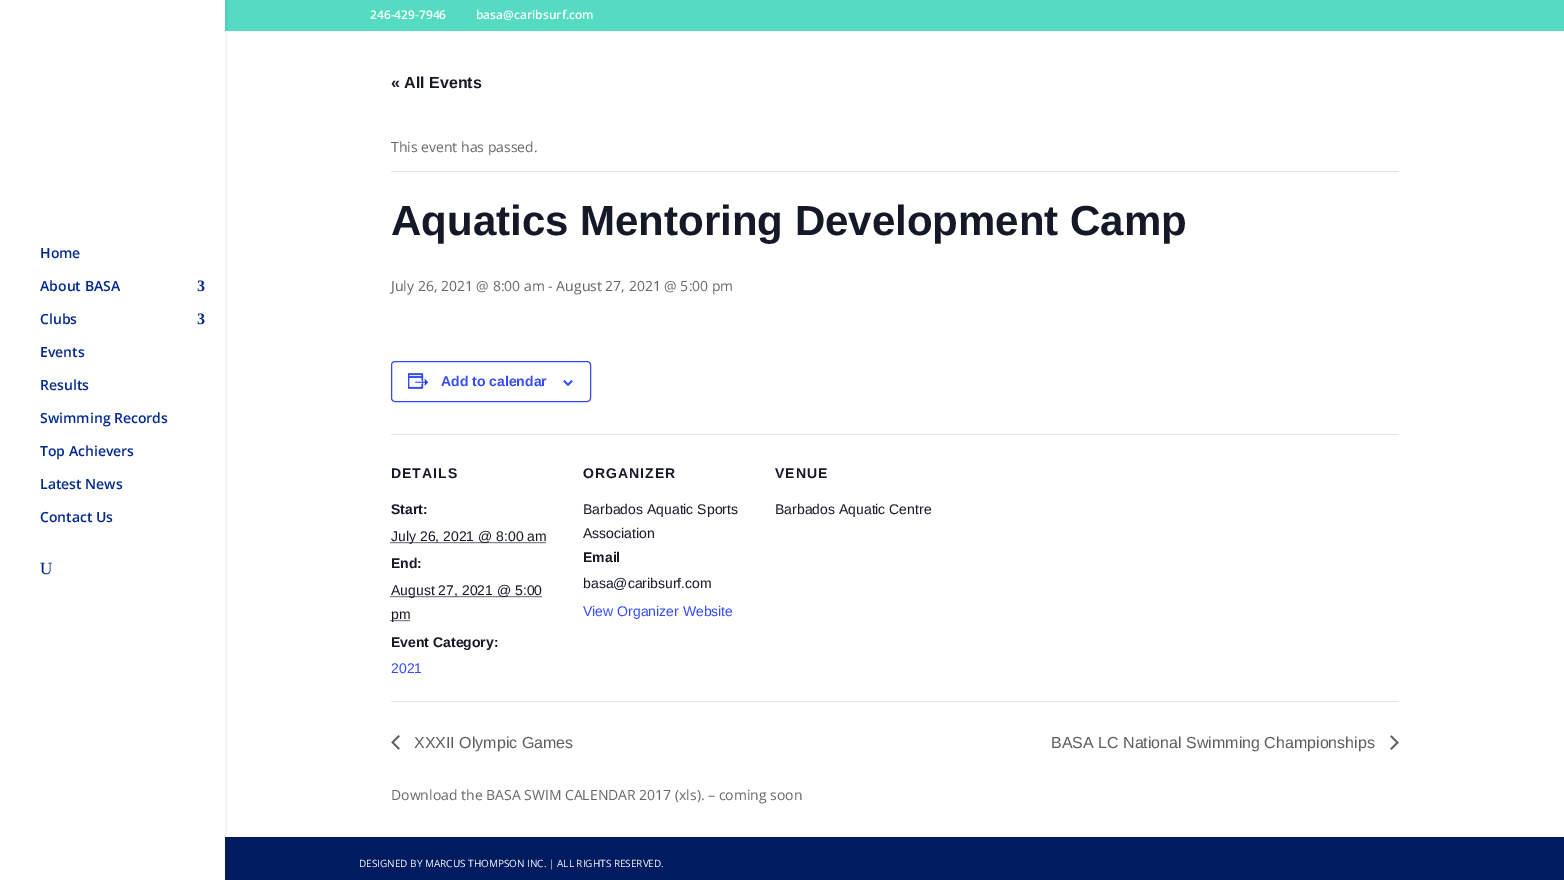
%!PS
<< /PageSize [1564 880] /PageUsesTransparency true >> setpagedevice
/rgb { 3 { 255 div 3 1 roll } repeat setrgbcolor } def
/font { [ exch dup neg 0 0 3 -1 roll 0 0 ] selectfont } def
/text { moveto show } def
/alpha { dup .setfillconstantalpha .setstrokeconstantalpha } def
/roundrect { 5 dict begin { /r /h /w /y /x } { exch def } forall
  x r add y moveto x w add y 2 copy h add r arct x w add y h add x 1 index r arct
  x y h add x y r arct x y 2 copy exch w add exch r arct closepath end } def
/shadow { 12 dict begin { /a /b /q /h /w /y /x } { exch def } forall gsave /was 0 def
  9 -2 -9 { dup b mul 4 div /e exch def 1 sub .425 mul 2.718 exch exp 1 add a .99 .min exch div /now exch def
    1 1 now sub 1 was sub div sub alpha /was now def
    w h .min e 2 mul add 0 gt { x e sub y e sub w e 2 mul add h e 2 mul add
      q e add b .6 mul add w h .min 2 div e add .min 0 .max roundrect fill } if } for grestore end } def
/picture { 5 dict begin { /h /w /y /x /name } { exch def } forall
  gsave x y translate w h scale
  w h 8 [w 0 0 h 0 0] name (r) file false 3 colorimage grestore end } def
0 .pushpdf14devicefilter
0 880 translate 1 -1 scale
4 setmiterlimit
255 255 255 rgb
0 0 1564 880 rectfill
84 219 194 rgb
225 0 1339 31 rectfill
1 27 97 rgb
225 837 1339 43 rectfill
gsave
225 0 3 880 rectclip
0 0 0 rgb
0 0 225 880 0 3.5 0.1 shadow
grestore
228 228 228 rgb
391 171 1008 1 rectfill
51 74 255 rgb
391.5 361.5 199 40 3.5 roundrect stroke
(img_01.rgb) 408 373 21 16 picture
(img_02.rgb) 563 380 10 6 picture
228 228 228 rgb
391 434 1008 1 rectfill
20 24 39 rgb
[1 1] 0 setdash
390.5 542.5 moveto 156 0 rlineto stroke
390.5 596.5 moveto 151 0 rlineto stroke
390.5 620.5 moveto 19.5 0 rlineto stroke
228 228 228 rgb
391 701 1008 1 rectfill
(img_03.rgb) 391 735 9 15 picture
(img_04.rgb) 1390 735 9 15 picture
/OpenSans-SemiBold 12 font
255 255 255 rgb
(246-429-7946) 370 19 text
(basa@caribsurf.com) 476 19 text
/OpenSans-SemiBold 14 font
1 40 143 rgb
(Home) 40 258 text
(About BASA) 40 291 text
/LiberationSerif-Bold 16 font
(3) 197 291 text
/OpenSans-SemiBold 14 font
(Clubs) 40 324 text
/LiberationSerif-Bold 16 font
(3) 197 324 text
/OpenSans-SemiBold 14 font
(Events) 40 357 text
(Results) 40 390 text
(Swimming Records) 40 423 text
(Top Achievers) 40 456 text
(Latest News) 40 489 text
(Contact Us) 40 522 text
/LiberationSerif-Regular 17 font
(U) 40 574 text
/LiberationSans-Bold 16 font
20 24 39 rgb
(« All Events) 391 88 text
/OpenSans-Regular 14 font
102 102 102 rgb
(This event has passed.) 391 152 text
/LiberationSans-Bold 42 font
20 24 39 rgb
(Aquatics Mentoring Development Camp) 391 235 text
/OpenSans-Regular 14 font
102 102 102 rgb
(July 26, 2021 @ 8:00 am - August 27, 2021 @ 5:00 pm) 391 291 text
/LiberationSans-Bold 14 font
51 74 255 rgb
(Add to calendar) 441 386 text
20 24 39 rgb
391 478 moveto 1 0 (DETAILS) ashow
(Start:) 391 514 text
/LiberationSans-Regular 14 font
(July 26, 2021 @ 8:00 am) 391 541 text
/LiberationSans-Bold 14 font
(End:) 391 568 text
/LiberationSans-Regular 14 font
(August 27, 2021 @ 5:00) 391 595 text
(pm) 391 619 text
/LiberationSans-Bold 14 font
(Event Category:) 391 647 text
/LiberationSans-Regular 14 font
51 74 255 rgb
(2021) 391 673 text
/LiberationSans-Bold 14 font
20 24 39 rgb
583 478 moveto 1 0 (ORGANIZER) ashow
/LiberationSans-Regular 14 font
(Barbados Aquatic Sports) 583 514 text
(Association) 583 538 text
/LiberationSans-Bold 14 font
(Email) 583 562 text
/LiberationSans-Regular 14 font
(basa@caribsurf.com) 583 588 text
51 74 255 rgb
(View Organizer Website) 583 616 text
/LiberationSans-Bold 14 font
20 24 39 rgb
775 478 moveto 1 0 (VENUE) ashow
/LiberationSans-Regular 14 font
(Barbados Aquatic Centre) 775 514 text
/LiberationSans-Regular 16 font
93 93 93 rgb
(XXXII Olympic Games) 414 748 text
(BASA LC National Swimming Championships) 1051 748 text
/OpenSans-Regular 14 font
102 102 102 rgb
(Download the BASA SWIM CALENDAR 2017 \(xls\). – coming soon) 391 800 text
/OpenSans-Regular 10 font
255 255 255 rgb
(DESIGNED BY MARCUS THOMPSON INC. | ALL RIGHTS RESERVED.) 359 867 text
.poppdf14devicefilter showpage
